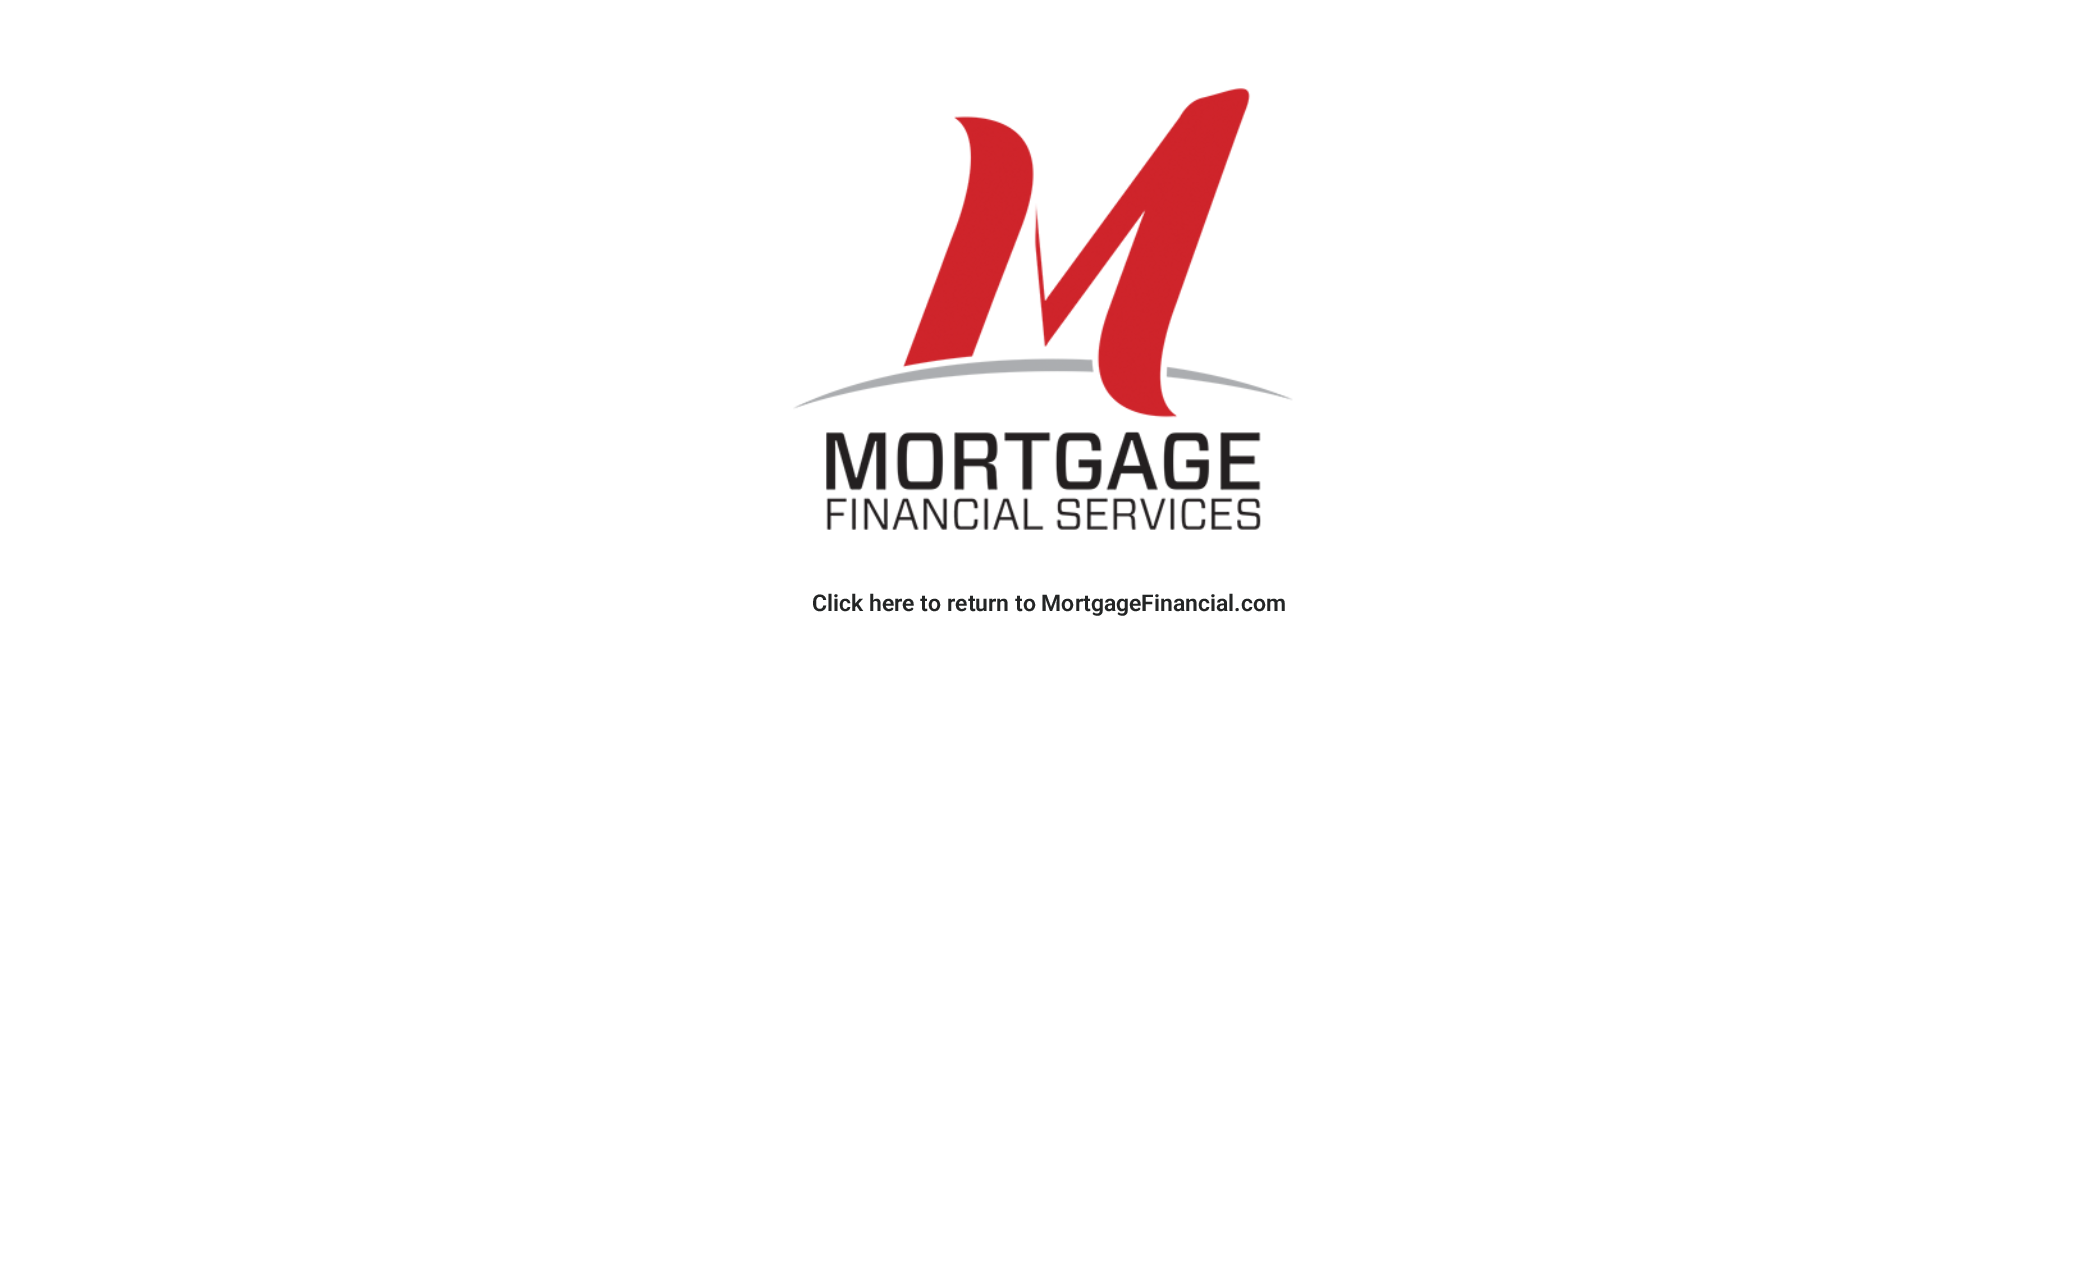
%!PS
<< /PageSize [2097 1274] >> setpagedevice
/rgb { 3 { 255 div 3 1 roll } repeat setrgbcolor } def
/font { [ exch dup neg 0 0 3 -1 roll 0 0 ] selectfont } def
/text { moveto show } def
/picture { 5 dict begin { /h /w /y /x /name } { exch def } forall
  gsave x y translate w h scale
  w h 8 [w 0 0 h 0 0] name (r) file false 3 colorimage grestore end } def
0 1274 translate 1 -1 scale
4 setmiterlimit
255 255 255 rgb
0 0 2097 1274 rectfill
(img_01.rgb) 793 88 500 442 picture
/Roboto-SemiBold 23 font
35 37 37 rgb
(Click here to return to MortgageFinancial.com) 812 611 text
showpage
